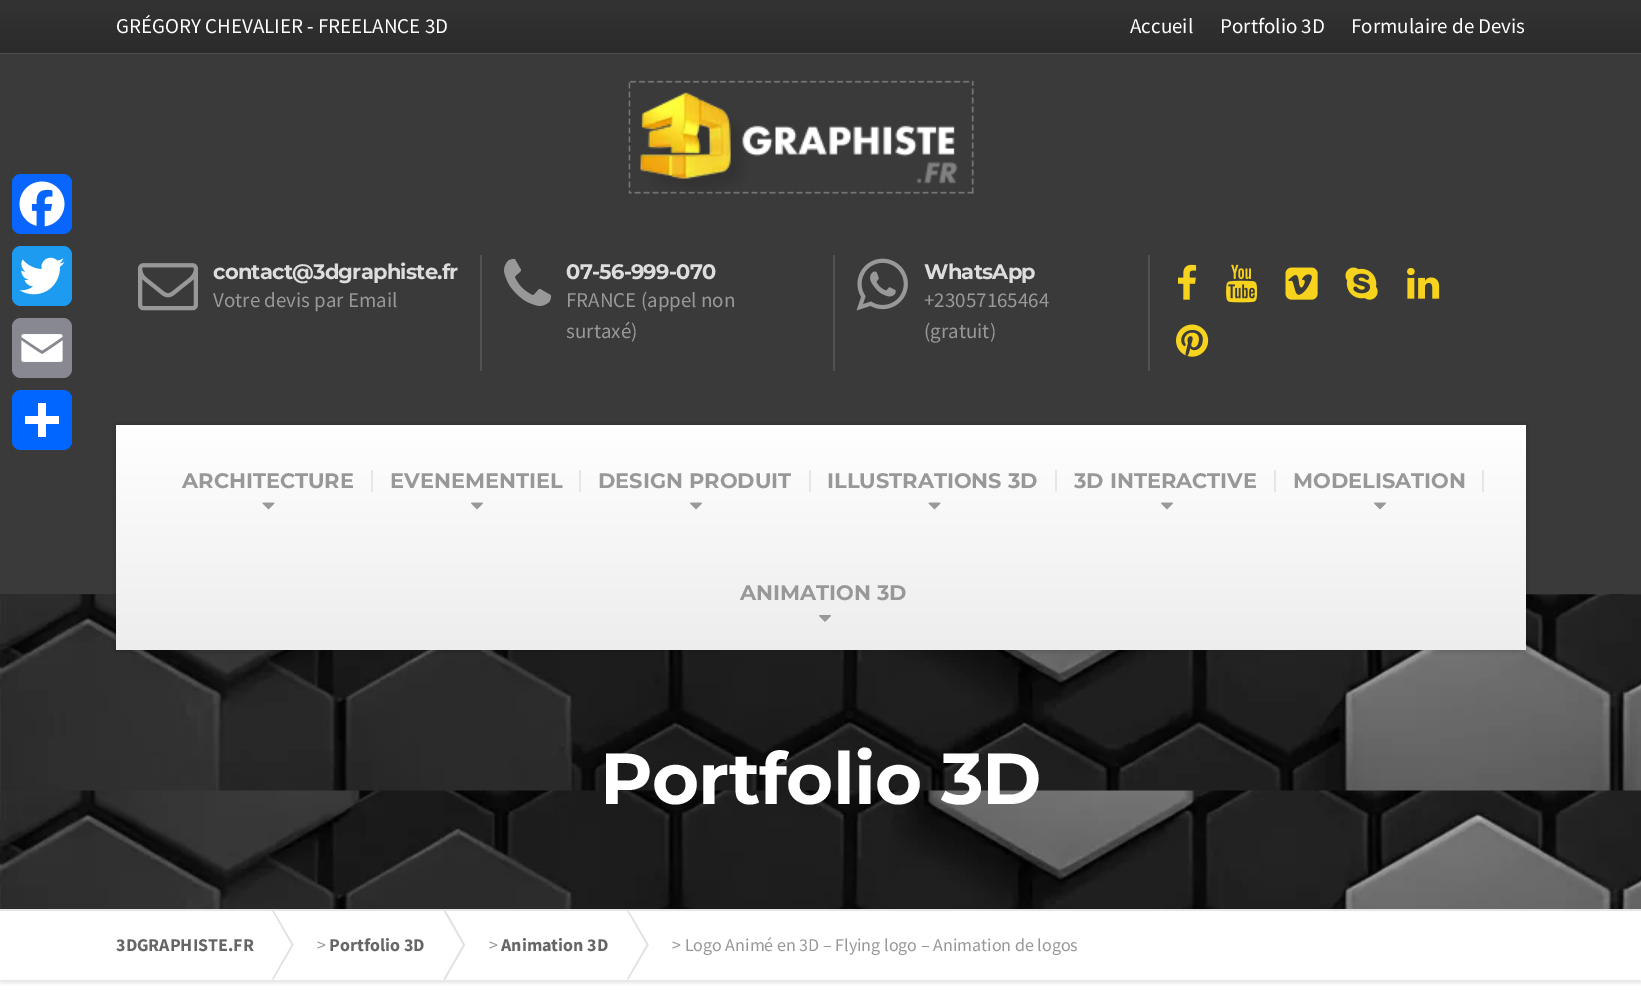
%!PS
<< /PageSize [1641 1002] /PageUsesTransparency true >> setpagedevice
/rgb { 3 { 255 div 3 1 roll } repeat setrgbcolor } def
/font { [ exch dup neg 0 0 3 -1 roll 0 0 ] selectfont } def
/text { moveto show } def
/alpha { dup .setfillconstantalpha .setstrokeconstantalpha } def
/roundrect { 5 dict begin { /r /h /w /y /x } { exch def } forall
  x r add y moveto x w add y 2 copy h add r arct x w add y h add x 1 index r arct
  x y h add x y r arct x y 2 copy exch w add exch r arct closepath end } def
/shadow { 12 dict begin { /a /b /q /h /w /y /x } { exch def } forall gsave /was 0 def
  9 -2 -9 { dup b mul 4 div /e exch def 1 sub .425 mul 2.718 exch exp 1 add a .99 .min exch div /now exch def
    1 1 now sub 1 was sub div sub alpha /was now def
    w h .min e 2 mul add 0 gt { x e sub y e sub w e 2 mul add h e 2 mul add
      q e add b .6 mul add w h .min 2 div e add .min 0 .max roundrect fill } if } for grestore end } def
/picture { 5 dict begin { /h /w /y /x /name } { exch def } forall
  gsave x y translate w h scale
  w h 8 [w 0 0 h 0 0] name (r) file false 3 colorimage grestore end } def
0 .pushpdf14devicefilter
0 1002 translate 1 -1 scale
4 setmiterlimit
255 255 255 rgb
0 0 1641 1002 rectfill
58 58 58 rgb
0 54 1641 540 rectfill
8 102 255 rgb
12 174 60 60 9 roundrect fill
(img_01.rgb) 19 181 46 46 picture
29 155 240 rgb
12 246 60 60 9 roundrect fill
(img_02.rgb) 19 257 46 38 picture
136 137 144 rgb
12 318 60 60 9 roundrect fill
(img_03.rgb) 21 334 42 28 picture
1 102 255 rgb
12 390 60 60 9 roundrect fill
255 255 255 rgb
38 403 8 34 rectfill
25 416 34 8 rectfill
gsave 0 0 moveto 1641 0 rlineto 0 53 rlineto -1641 0 rlineto closepath clip newpath
<< /ShadingType 2 /ColorSpace /DeviceRGB /Coords [821 0 821 53] /Extend [true true] /Function << /FunctionType 2 /Domain [0 1] /C0 [0.2 0.2 0.2] /C1 [0.169 0.169 0.169] /N 1 >> >> shfill grestore
77 77 77 rgb
0 53 1641 1 rectfill
(img_04.rgb) 628 80 346 114 picture
81 81 81 rgb
480 255 2 116 rectfill
(img_05.rgb) 138 263 60 48 picture
833 255 2 116 rectfill
(img_06.rgb) 504 258 48 48 picture
1148 255 2 116 rectfill
(img_07.rgb) 856 258 52 53 picture
(img_08.rgb) 1178 264 19 36 picture
(img_09.rgb) 1226 264 32 39 picture
(img_10.rgb) 1285 267 33 33 picture
(img_11.rgb) 1345 267 33 33 picture
(img_12.rgb) 1407 268 33 31 picture
(img_13.rgb) 1176 324 33 33 picture
(img_17.rgb) 0 594 1641 315 picture
0 0 0 rgb
116 425 1410 225 0 3 0.25 shadow
gsave 116 425 moveto 1410 0 rlineto 0 225 rlineto -1410 0 rlineto closepath clip newpath
<< /ShadingType 2 /ColorSpace /DeviceRGB /Coords [821 424 821 650] /Extend [true true] /Function << /FunctionType 2 /Domain [0 1] /C0 [1 1 1] /C1 [0.929 0.929 0.929] /N 1 >> >> shfill grestore
230 230 230 rgb
371 470 2 22 rectfill
(img_14.rgb) 262 502 13 8 picture
579 470 2 22 rectfill
(img_15.rgb) 471 502 12 8 picture
809 470 2 22 rectfill
(img_15.rgb) 690 502 12 8 picture
1055 470 2 22 rectfill
(img_14.rgb) 928 502 13 8 picture
1274 470 2 22 rectfill
(img_15.rgb) 1161 502 12 8 picture
1482 470 2 22 rectfill
(img_15.rgb) 1374 502 12 8 picture
(img_16.rgb) 819 615 12 7 picture
0 909 1641 2 rectfill
0 914 1641 69 0 1.5 1 shadow
255 255 255 rgb
0 912 1641 68 rectfill
226 226 226 rgb
272 910.5 moveto 1 -1 rlineto 20.5 35 rlineto -1.5 1 rlineto closepath fill
292 944 moveto 1.5 1 rlineto -20.5 35 rlineto -1 -1 rlineto closepath fill
443.5 910.5 moveto 1.5 -1 rlineto 20 35 rlineto -1.5 1 rlineto closepath fill
463.5 944 moveto 1.5 1 rlineto -20 35 rlineto -1.5 -1 rlineto closepath fill
627 910.5 moveto 1 -1 rlineto 20.5 35 rlineto -1.5 1 rlineto closepath fill
647 944 moveto 1.5 1 rlineto -20.5 35 rlineto -1 -1 rlineto closepath fill
/SourceSansPro-Regular 21 font
255 255 255 rgb
(GRÉGORY CHEVALIER - FREELANCE 3D) 116 33 text
(Accueil) 1130 33 text
(Portfolio 3D) 1220 33 text
(Formulaire de Devis) 1351 33 text
/Montserrat-Thin 21 font
221 221 221 rgb
213 279 moveto -0.75 0 (contact@3dgraphiste.fr) ashow
/SourceSansPro-Regular 21 font
152 152 152 rgb
(Votre devis par Email) 213 307 text
/Montserrat-Thin 21 font
221 221 221 rgb
566 279 moveto -0.75 0 (07-56-999-070) ashow
/SourceSansPro-Regular 21 font
152 152 152 rgb
(FRANCE \(appel non) 566 307 text
(surtaxé\)) 566 338 text
/Montserrat-Thin 21 font
221 221 221 rgb
924 279 moveto -0.75 0 (WhatsApp) ashow
/SourceSansPro-Regular 21 font
152 152 152 rgb
(+23057165464) 924 307 text
(\(gratuit\)) 924 338 text
/Montserrat-Thin 21 font
(ARCHITECTURE) 182 488 text
(EVENEMENTIEL) 390 488 text
(DESIGN PRODUIT) 598 488 text
(ILLUSTRATIONS 3D) 827 488 text
(3D INTERACTIVE) 1074 488 text
(MODELISATION) 1293 488 text
(ANIMATION 3D) 740 600 text
/Montserrat-Thin 72 font
255 255 255 rgb
600 804 moveto -0.75 0 (Portfolio 3D) ashow
/SourceSansPro-Bold 18 font
102 102 102 rgb
(3DGRAPHISTE.FR) 116 951 text
/SourceSansPro-Regular 18 font
152 152 152 rgb
(>) 317 951 text
/SourceSansPro-Bold 18 font
102 102 102 rgb
(Portfolio 3D) 329 951 text
/SourceSansPro-Regular 18 font
152 152 152 rgb
(>) 489 951 text
/SourceSansPro-Bold 18 font
102 102 102 rgb
(Animation 3D) 501 951 text
/SourceSansPro-Regular 18 font
152 152 152 rgb
(> Logo Animé en 3D – Flying logo – Animation de logos) 672 951 text
.poppdf14devicefilter showpage
